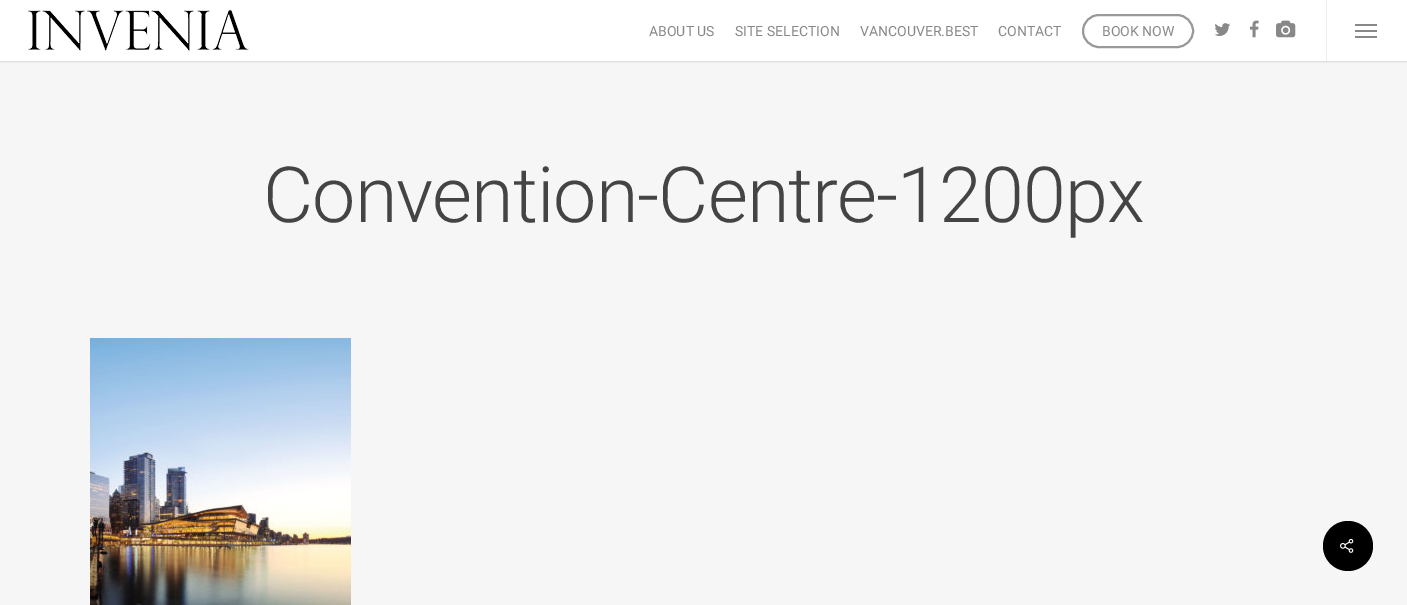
%!PS
<< /PageSize [1407 605] /PageUsesTransparency true >> setpagedevice
/rgb { 3 { 255 div 3 1 roll } repeat setrgbcolor } def
/font { [ exch dup neg 0 0 3 -1 roll 0 0 ] selectfont } def
/text { moveto show } def
/alpha { dup .setfillconstantalpha .setstrokeconstantalpha } def
/circle { newpath 0 360 arc closepath } def
/roundrect { 5 dict begin { /r /h /w /y /x } { exch def } forall
  x r add y moveto x w add y 2 copy h add r arct x w add y h add x 1 index r arct
  x y h add x y r arct x y 2 copy exch w add exch r arct closepath end } def
/shadow { 12 dict begin { /a /b /q /h /w /y /x } { exch def } forall gsave /was 0 def
  9 -2 -9 { dup b mul 4 div /e exch def 1 sub .425 mul 2.718 exch exp 1 add a .99 .min exch div /now exch def
    1 1 now sub 1 was sub div sub alpha /was now def
    w h .min e 2 mul add 0 gt { x e sub y e sub w e 2 mul add h e 2 mul add
      q e add b .6 mul add w h .min 2 div e add .min 0 .max roundrect fill } if } for grestore end } def
/picture { 5 dict begin { /h /w /y /x /name } { exch def } forall
  gsave x y translate w h scale
  w h 8 [w 0 0 h 0 0] name (r) file false 3 colorimage grestore end } def
0 .pushpdf14devicefilter
0 605 translate 1 -1 scale
4 setmiterlimit
255 255 255 rgb
0 0 1407 605 rectfill
246 246 246 rgb
0 61 1407 544 rectfill
gsave
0 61 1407 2 rectclip
0 0 0 rgb
0 0 1407 61 0 1.5 0.22 shadow
grestore
(img_01.rgb) 28 10 221 41 picture
153 153 153 rgb
2 setlinewidth
1083 15 110 32 16 roundrect stroke
(img_02.rgb) 1214 23 17 13 picture
(img_03.rgb) 1249 20 10 18 picture
(img_04.rgb) 1276 20 20 18 picture
237 237 237 rgb
1326 0 1 61 rectfill
136 136 136 rgb
1355 24 22 2 rectfill
1355 36 22 2 rectfill
1355 30 22 2 rectfill
(img_05.rgb) 90 338 261 267 picture
0 0 0 rgb
1348 546 25 circle fill
(img_06.rgb) 1340 538 14 15 picture
/Roboto-Regular 14 font
136 136 136 rgb
(ABOUT US) 649 36 text
(SITE SELECTION) 735 36 text
(VANCOUVER.BEST) 860 36 text
(CONTACT) 998 36 text
(BOOK NOW) 1102 36 text
/Roboto-Light 77.4 font
68 68 68 rgb
263 222 moveto -1 0 (Convention-Centre-1200px) ashow
.poppdf14devicefilter showpage
